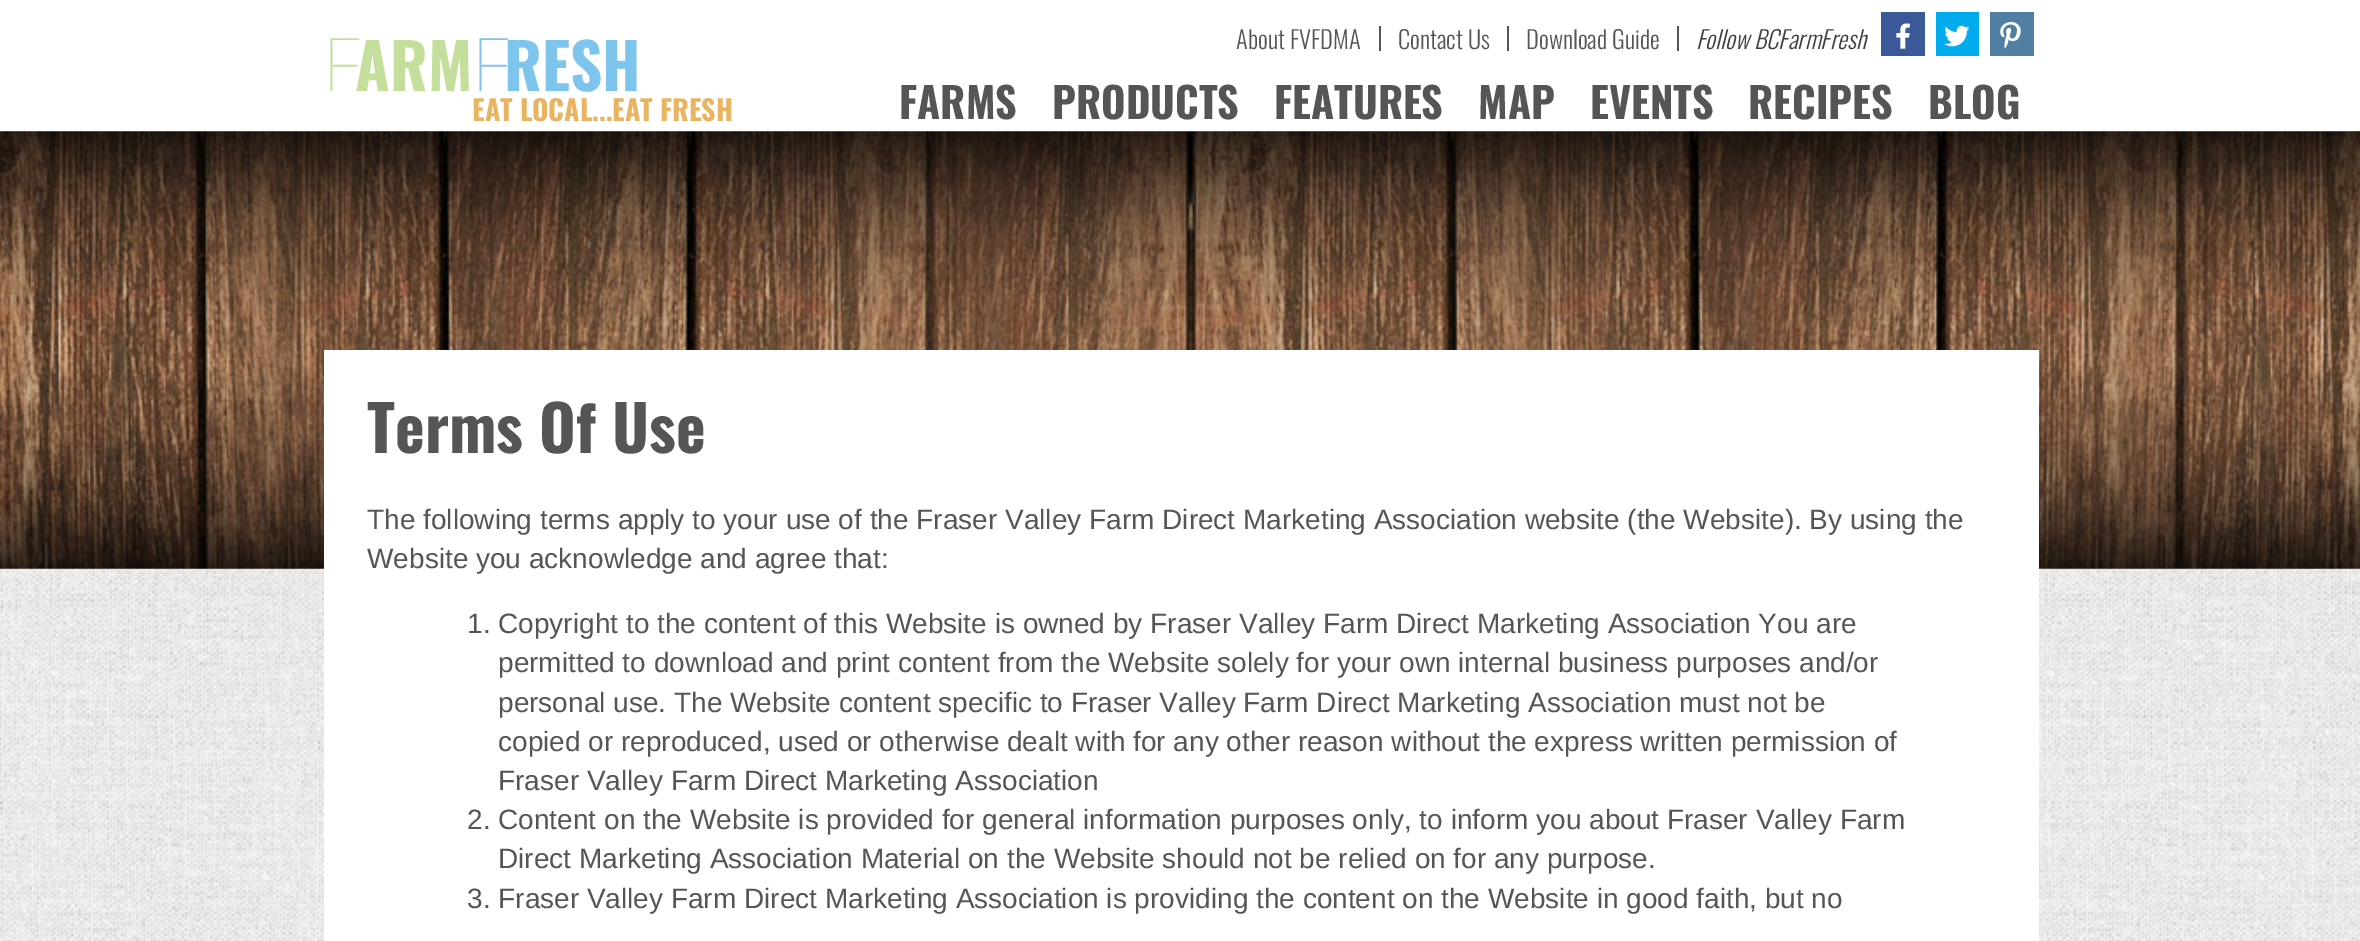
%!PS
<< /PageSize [2360 941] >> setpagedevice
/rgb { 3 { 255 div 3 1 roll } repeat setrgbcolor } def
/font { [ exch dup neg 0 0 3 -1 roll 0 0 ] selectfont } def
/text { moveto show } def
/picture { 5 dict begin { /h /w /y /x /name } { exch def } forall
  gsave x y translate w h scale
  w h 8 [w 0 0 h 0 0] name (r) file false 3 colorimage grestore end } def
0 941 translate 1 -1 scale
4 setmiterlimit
255 255 255 rgb
0 0 2360 941 rectfill
(img_01.rgb) 0 131 2360 810 picture
85 85 85 rgb
1379 26 2 25 rectfill
1507 26 2 25 rectfill
1677 26 2 25 rectfill
59 89 152 rgb
1881 12 44 44 rectfill
(img_02.rgb) 1896 23 14 26 picture
0 172 237 rgb
1936 12 43 44 rectfill
(img_03.rgb) 1944 25 26 22 picture
81 127 164 rgb
1990 12 44 44 rectfill
(img_04.rgb) 2000 21 21 28 picture
(img_05.rgb) 0 131 2360 438 picture
255 255 255 rgb
324 350 1715 591 rectfill
/NotoSans-Thin 74 font
196 223 155 rgb
(F) 323 91 text
/Oswald-Bold 63 font
(ARM) 355 91 text
/NotoSans-Thin 74 font
125 197 237 rgb
(F) 472 91 text
/Oswald-Bold 63 font
(RESH) 504 91 text
/Oswald-Bold 28 font
233 180 98 rgb
(EAT LOCAL...EAT FRESH) 472 121 text
/Oswald-Light 24.5 font
85 85 85 rgb
(About FVFDMA) 1236 49 text
(Contact Us) 1398 49 text
(Download Guide) 1526 49 text
/Oswald-LightItalic 24.5 font
64 64 64 rgb
(Follow BCFarmFresh) 1696 49 text
/Oswald-Bold 42 font
85 85 85 rgb
(FARMS) 899 119 text
(PRODUCTS) 1052 119 text
(FEATURES) 1274 119 text
(MAP) 1478 119 text
(EVENTS) 1590 119 text
(RECIPES) 1748 119 text
(BLOG) 1928 119 text
/Oswald-Bold 63 font
(Terms Of Use) 367 453 text
/LiberationSans-Regular 28 font
(The following terms apply to your use of the Fraser Valley Farm Direct Marketing Association website \(the Website\). By using the) 367 529 text
(Website you acknowledge and agree that:) 367 568 text
(1. Copyright to the content of this Website is owned by Fraser Valley Farm Direct Marketing Association You are) 467 633 text
(permitted to download and print content from the Website solely for your own internal business purposes and/or) 498 672 text
(personal use. The Website content specific to Fraser Valley Farm Direct Marketing Association must not be) 498 712 text
(copied or reproduced, used or otherwise dealt with for any other reason without the express written permission of) 498 751 text
(Fraser Valley Farm Direct Marketing Association) 498 790 text
(2. Content on the Website is provided for general information purposes only, to inform you about Fraser Valley Farm) 467 829 text
(Direct Marketing Association Material on the Website should not be relied on for any purpose.) 498 868 text
(3. Fraser Valley Farm Direct Marketing Association is providing the content on the Website in good faith, but no) 467 908 text
showpage
